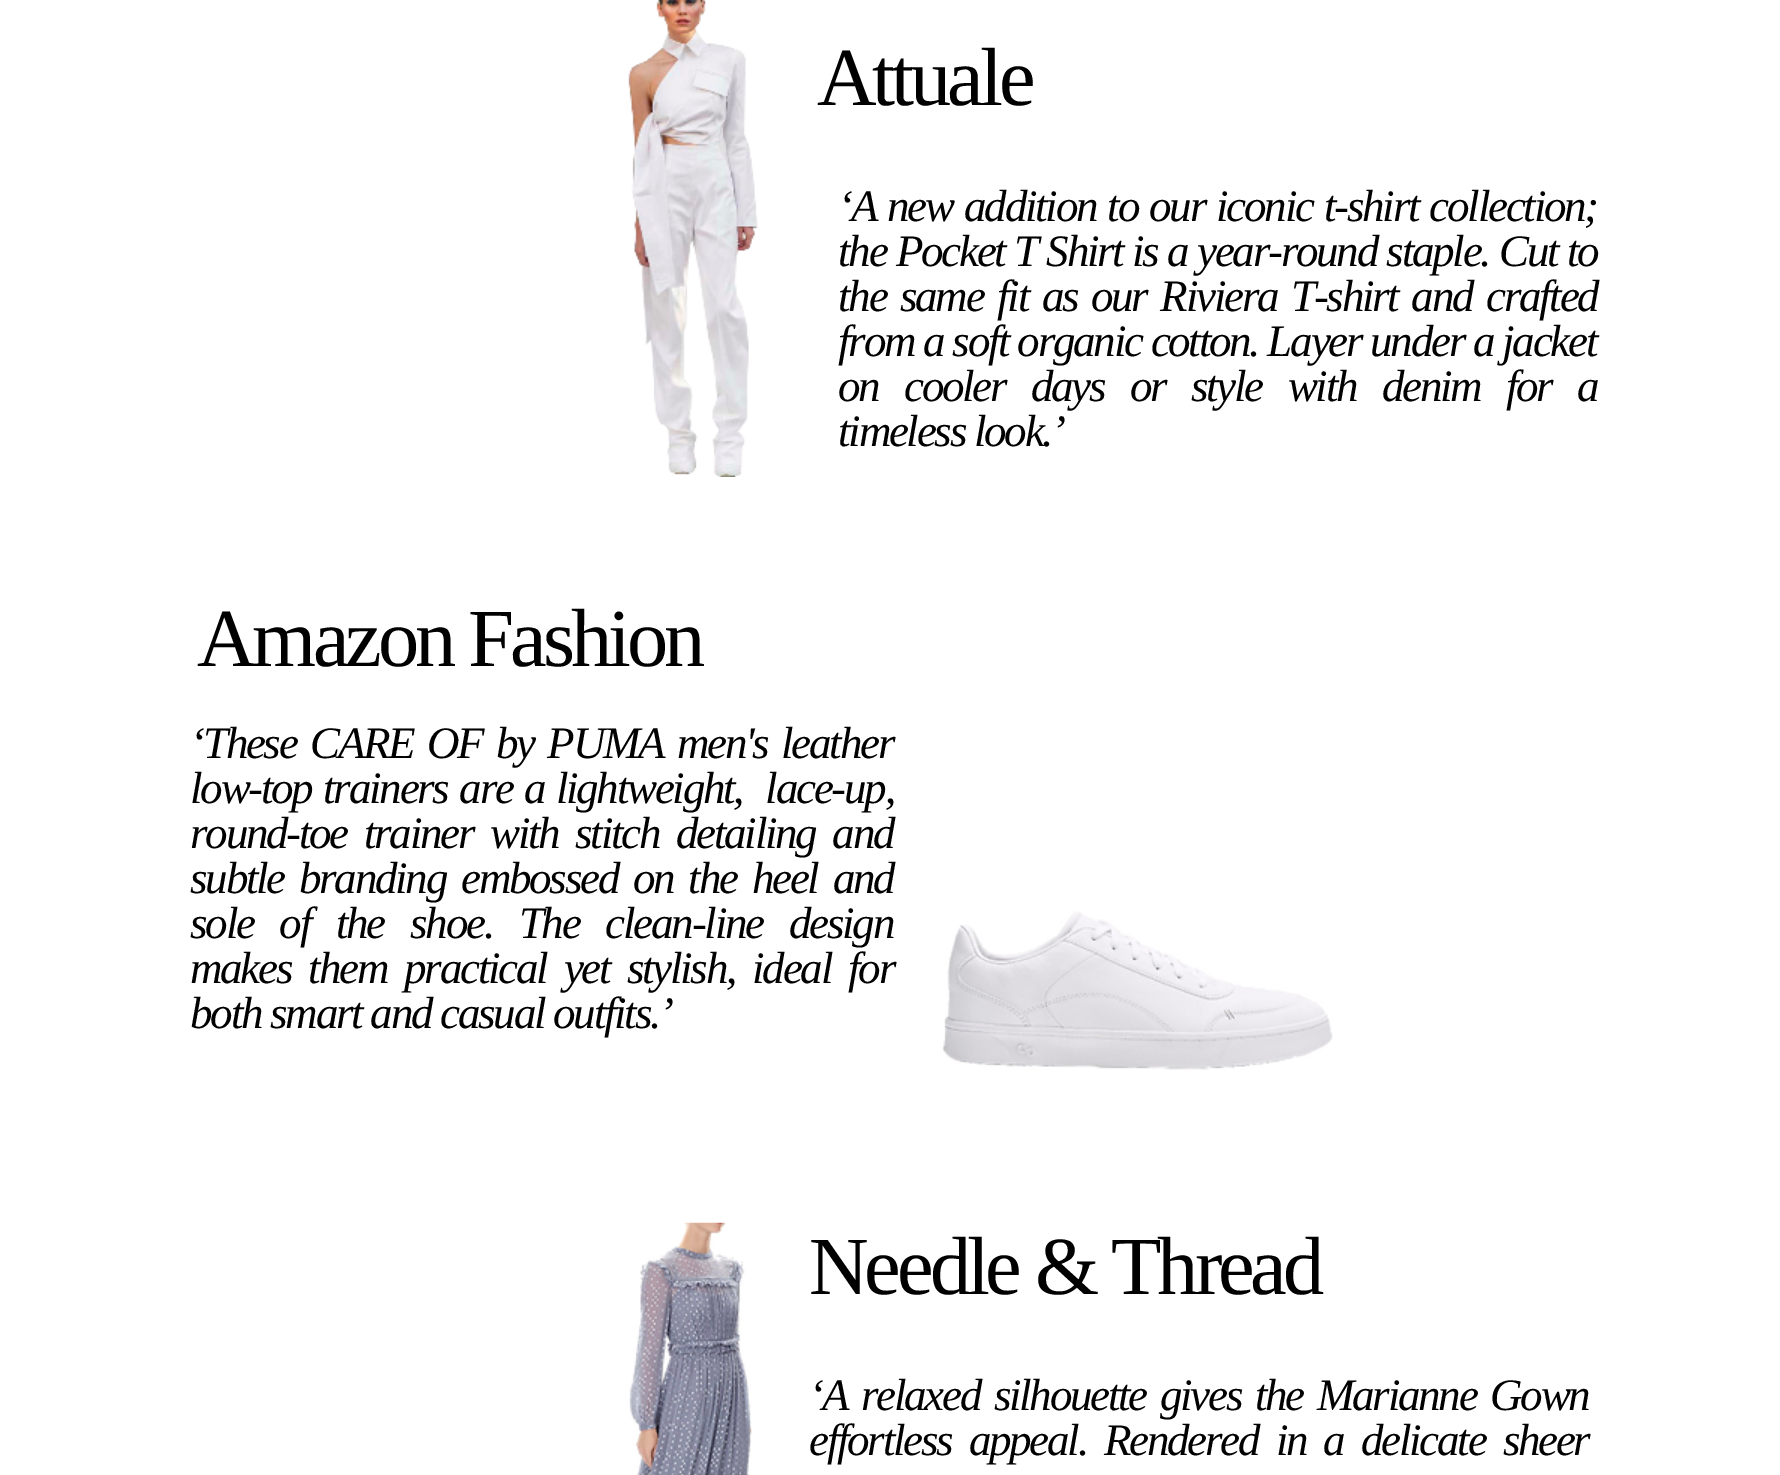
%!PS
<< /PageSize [1780 1475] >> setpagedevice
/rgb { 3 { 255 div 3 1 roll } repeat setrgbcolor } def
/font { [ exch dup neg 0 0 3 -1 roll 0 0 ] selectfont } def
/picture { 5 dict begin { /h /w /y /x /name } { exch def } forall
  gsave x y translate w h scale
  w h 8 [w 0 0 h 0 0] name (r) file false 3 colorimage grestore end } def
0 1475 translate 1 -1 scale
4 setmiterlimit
255 255 255 rgb
0 0 1780 1475 rectfill
(img_01.rgb) 628 0 130 477 picture
(img_02.rgb) 942 911 391 159 picture
(img_03.rgb) 629 1222 123 253 picture
/LiberationSerif-Regular 82.5 font
0 0 0 rgb
817 105 moveto -4.1 0 (Attuale) ashow
/LiberationSerif-Italic 45 font
838 221 moveto 2.25 0 32 -2.25 0 (‘A new addition to our iconic t-shirt collection;) awidthshow
838 266 moveto 0.5 0 32 -2.25 0 (the Pocket T Shirt is a year-round staple. Cut to) awidthshow
838 311 moveto 4.75 0 32 -2.25 0 (the same fit as our Riviera T-shirt and crafted) awidthshow
838 356 moveto -2.25 0 (from a soft organic cotton. Layer under a jacket) ashow
838 401 moveto 16.5 0 32 -2.25 0 (on cooler days or style with denim for a) awidthshow
838 446 moveto -2.25 0 (timeless look.’) ashow
/LiberationSerif-Regular 82.5 font
197 666 moveto -4.1 0 (Amazon Fashion) ashow
/LiberationSerif-Italic 45 font
190 758 moveto 4.5 0 32 -2.25 0 (‘These CARE OF by PUMA men's leather) awidthshow
190 803 moveto 2.5 0 32 -2.25 0 (low-top trainers are a lightweight,  lace-up,) awidthshow
190 848 moveto 7.75 0 32 -2.25 0 (round-toe trainer with stitch detailing and) awidthshow
190 893 moveto 6 0 32 -2.25 0 (subtle branding embossed on the heel and) awidthshow
190 938 moveto 17 0 32 -2.25 0 (sole of the shoe. The clean-line design) awidthshow
190 983 moveto 8.25 0 32 -2.25 0 (makes them practical yet stylish, ideal for) awidthshow
190 1028 moveto -2.25 0 (both smart and casual outfits.’) ashow
/LiberationSerif-Regular 82.5 font
809 1294 moveto -4.1 0 (Needle & Thread) ashow
/LiberationSerif-Italic 45 font
809 1410 moveto 4.75 0 32 -2.25 0 (‘A relaxed silhouette gives the Marianne Gown) awidthshow
809 1455 moveto 8.25 0 32 -2.25 0 (effortless appeal. Rendered in a delicate sheer) awidthshow
showpage
